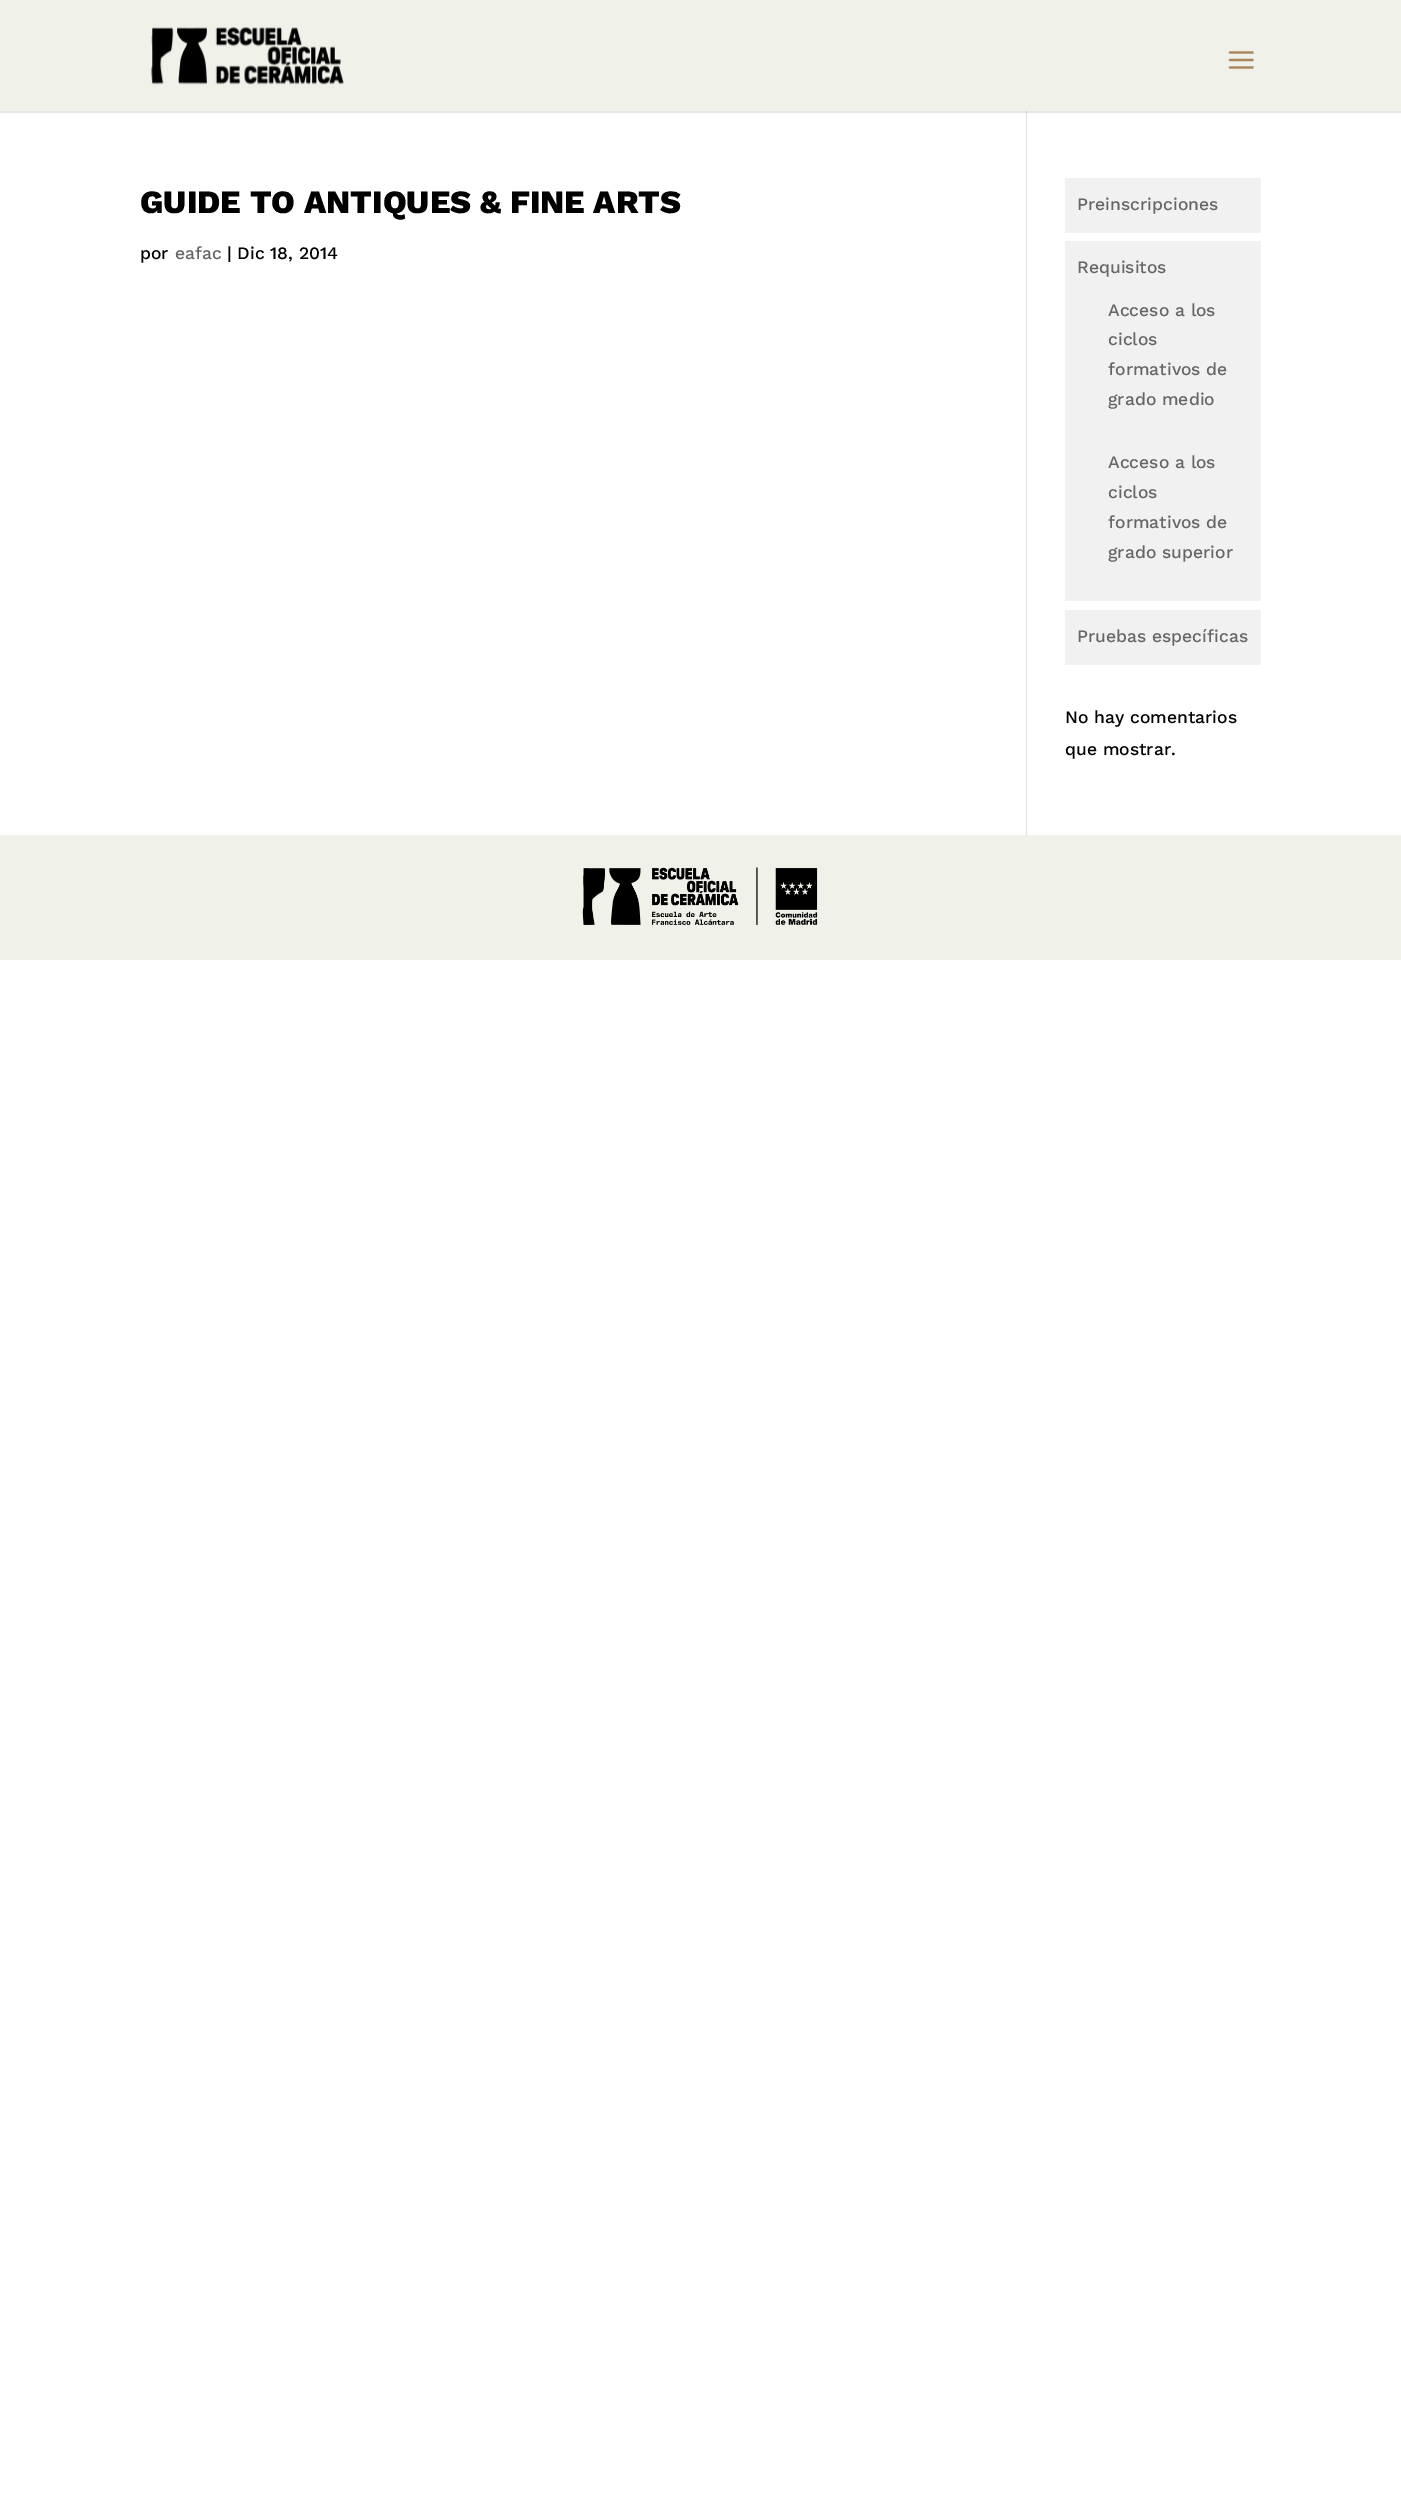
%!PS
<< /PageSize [1401 2499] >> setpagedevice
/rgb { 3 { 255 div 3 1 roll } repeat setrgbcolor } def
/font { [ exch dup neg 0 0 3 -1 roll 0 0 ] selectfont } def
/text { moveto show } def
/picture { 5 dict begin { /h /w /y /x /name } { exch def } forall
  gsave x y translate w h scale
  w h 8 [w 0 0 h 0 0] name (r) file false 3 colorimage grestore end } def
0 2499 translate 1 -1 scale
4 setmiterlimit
255 255 255 rgb
0 0 1401 2499 rectfill
230 230 230 rgb
0 111 1401 2 rectfill
226 226 226 rgb
1026 105 1 733 rectfill
240 241 233 rgb
0 0 1401 111 rectfill
(img_01.rgb) 151 27 193 58 picture
(img_02.rgb) 1228 51 26 18 picture
203 203 203 rgb
1026 111 1 2 rectfill
241 241 241 rgb
1065 178 196 55 rectfill
1065 241 196 360 rectfill
1065 610 196 55 rectfill
240 241 233 rgb
0 835 1401 125 rectfill
(img_03.rgb) 582 867 236 58 picture
/WorkSans-ExtraBold 32.5 font
0 0 0 rgb
(GUIDE TO ANTIQUES & FINE ARTS) 140 213 text
/WorkSans-Medium 17.5 font
(por) 140 259 text
102 102 102 rgb
(eafac) 175 259 text
0 0 0 rgb
(| Dic 18, 2014) 227 259 text
102 102 102 rgb
(Preinscripciones) 1077 210 text
(Requisitos) 1077 273 text
(Acceso a los) 1108 316 text
(ciclos) 1108 345 text
(formativos de) 1108 375 text
(grado medio) 1108 405 text
(Acceso a los) 1108 468 text
(ciclos) 1108 498 text
(formativos de) 1108 528 text
(grado superior) 1108 558 text
(Pruebas específicas) 1077 642 text
0 0 0 rgb
(No hay comentarios) 1065 723 text
(que mostrar.) 1065 755 text
showpage
